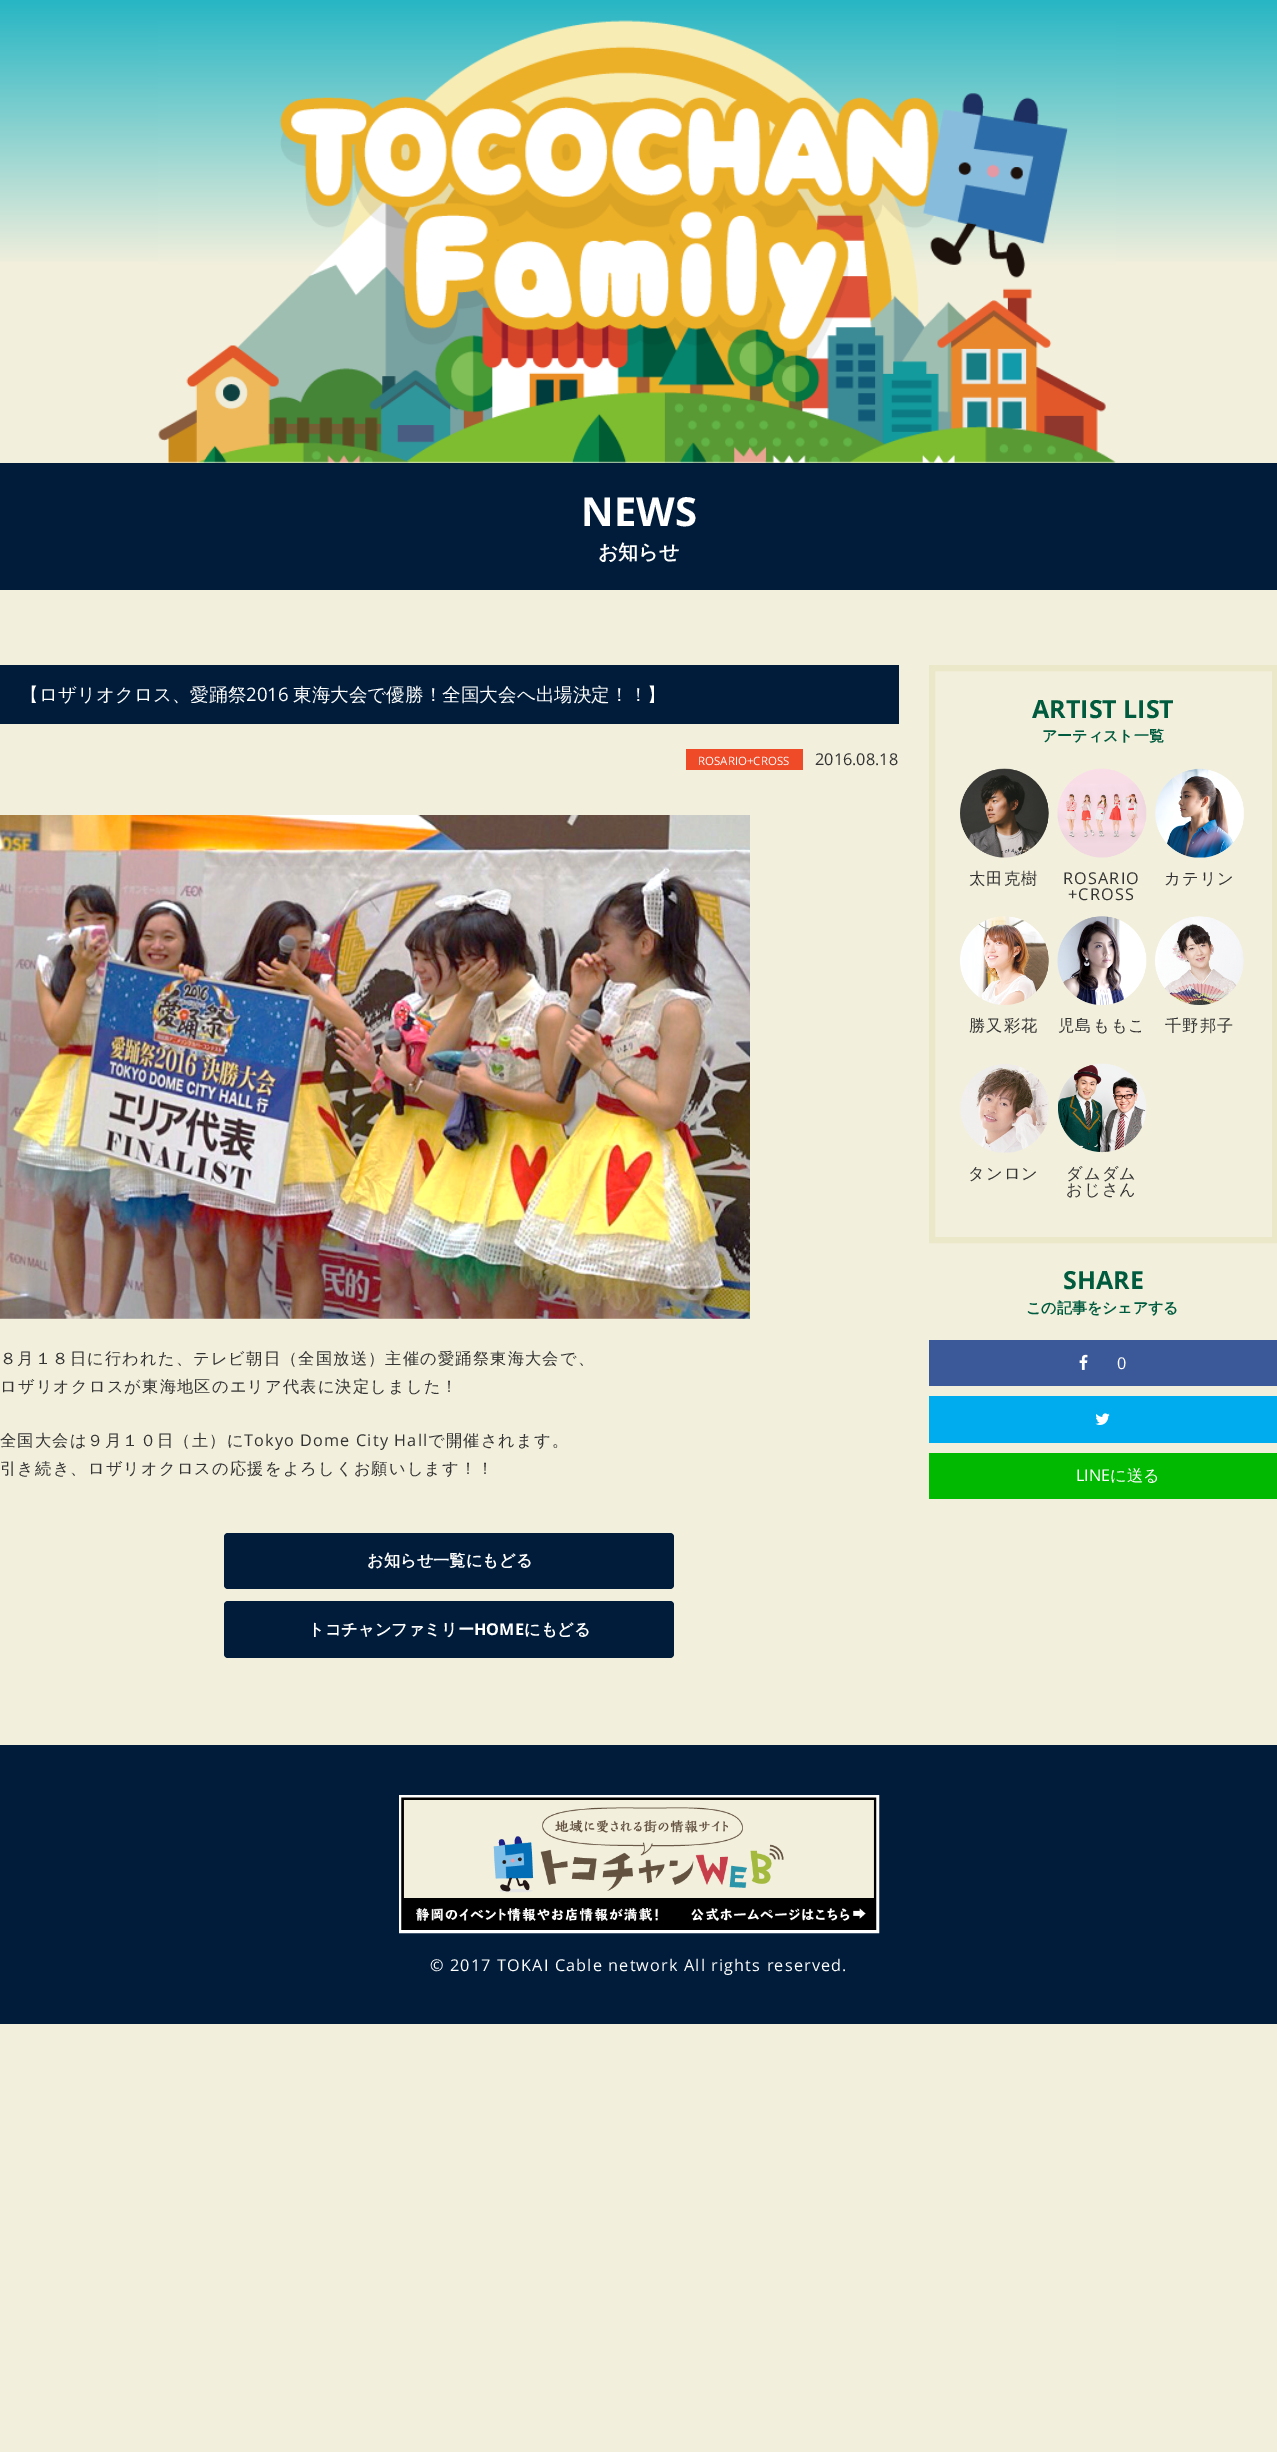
%!PS
<< /PageSize [1277 2452] >> setpagedevice
/rgb { 3 { 255 div 3 1 roll } repeat setrgbcolor } def
/font { [ exch dup neg 0 0 3 -1 roll 0 0 ] selectfont } def
/text { moveto show } def
/roundrect { 5 dict begin { /r /h /w /y /x } { exch def } forall
  x r add y moveto x w add y 2 copy h add r arct x w add y h add x 1 index r arct
  x y h add x y r arct x y 2 copy exch w add exch r arct closepath end } def
/picture { 5 dict begin { /h /w /y /x /name } { exch def } forall
  gsave x y translate w h scale
  w h 8 [w 0 0 h 0 0] name (r) file false 3 colorimage grestore end } def
0 2452 translate 1 -1 scale
4 setmiterlimit
242 239 220 rgb
0 0 1277 2452 rectfill
gsave 0 0 moveto 1277 0 rlineto 0 262 rlineto -1277 0 rlineto closepath clip newpath
<< /ShadingType 2 /ColorSpace /DeviceRGB /Coords [639 0 639 590] /Extend [true true] /Function << /FunctionType 3 /Domain [0 1] /Functions [<< /FunctionType 2 /Domain [0 1] /C0 [0.153 0.714 0.769] /C1 [0.949 0.937 0.863] /N 1 >> << /FunctionType 2 /Domain [0 1] /C0 [0.949 0.937 0.863] /C1 [0.949 0.937 0.863] /N 1 >>] /Bounds [0.45] /Encode [0 1 0 1] >> >> shfill grestore
(img_01.rgb) 158 20 958 443 picture
0 28 58 rgb
0 463 1277 127 rectfill
0 665 899 59 rectfill
240 75 40 rgb
686 749 117 21 rectfill
(img_02.rgb) 0 815 750 504 picture
0 28 58 rgb
224 1533 450 56 4 roundrect fill
224 1601 450 57 4 roundrect fill
235 231 201 rgb
6 setlinewidth
932 668 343 572 rectstroke
(img_03.rgb) 960 768 89 90 picture
(img_04.rgb) 1057 768 90 90 picture
(img_05.rgb) 1155 768 89 90 picture
(img_06.rgb) 960 916 89 89 picture
(img_07.rgb) 1057 916 90 89 picture
(img_08.rgb) 1155 916 89 89 picture
(img_09.rgb) 960 1064 89 89 picture
(img_10.rgb) 1058 1063 89 90 picture
59 89 152 rgb
929 1340 348 46 rectfill
(img_11.rgb) 1079 1354 9 16 picture
0 172 238 rgb
929 1396 348 47 rectfill
(img_12.rgb) 1095 1413 15 12 picture
0 185 0 rgb
929 1453 348 46 rectfill
0 28 58 rgb
0 1745 1277 279 rectfill
255 255 255 rgb
3 setlinewidth
400.5 1796.5 477 135 rectstroke
(img_13.rgb) 401 1797 476 133 picture
/OpenSans-Bold 40 font
(NEWS) 581 526 text
/WenQuanYiZenHei-Bold 20 font
(お知らせ) 598 559 text
/WenQuanYiZenHei-Medium 18.6 font
(【ロザリオクロス、愛踊祭) 20 701 text
/OpenSans-Regular 18.6 font
(2016) 246 701 text
/WenQuanYiZenHei-Medium 18.6 font
(東海大会で優勝！全国大会へ出場決定！！】) 293 701 text
/OpenSans-Regular 11.5 font
(ROSARIO+CROSS) 698 765 text
/OpenSans-Regular 16.25 font
51 51 51 rgb
(2016.08.18) 815 765 text
/WenQuanYiZenHei-Medium 16.25 font
0 1364 moveto 1.15 0 (８月１８日に行われた、テレビ朝日（全国放送）主催の愛踊祭東海大会で、) ashow
0 1392 moveto 1.15 0 (ロザリオクロスが東海地区のエリア代表に決定しました！) ashow
0 1446 moveto 1.15 0 (全国大会は９月１０日（土）に) ashow
/OpenSans-Regular 16.25 font
244 1446 moveto 1.15 0 (Tokyo Dome City Hall) ashow
/WenQuanYiZenHei-Medium 16.25 font
428 1446 moveto 1.15 0 (で開催されます。) ashow
0 1474 moveto 1.15 0 (引き続き、ロザリオクロスの応援をよろしくお願いします！！) ashow
/WenQuanYiZenHei-Bold 16.25 font
255 255 255 rgb
(お知らせ一覧にもどる) 367 1566 text
(トコチャンファミリー) 308 1635 text
/OpenSans-Bold 16.25 font
(HOME) 474 1635 text
/WenQuanYiZenHei-Bold 16.25 font
(にもどる) 524 1635 text
/OpenSans-Bold 25 font
0 91 62 rgb
(ARTIST LIST) 1032 718 text
/WenQuanYiZenHei-Bold 15 font
(アーティスト一覧) 1042 741 text
/WenQuanYiZenHei-Medium 16.25 font
51 51 51 rgb
969 884 moveto 1.15 0 (太田克樹) ashow
/OpenSans-Regular 16.25 font
1063 884 moveto 1.15 0 (ROSARIO) ashow
1068 900 moveto 1.15 0 (+CROSS) ashow
/WenQuanYiZenHei-Medium 16.25 font
1164 884 moveto 1.15 0 (カテリン) ashow
969 1031 moveto 1.15 0 (勝又彩花) ashow
1058 1031 moveto 1.15 0 (児島ももこ) ashow
1165 1031 moveto 1.15 0 (千野邦子) ashow
968 1179 moveto 1.15 0 (タンロン) ashow
1066 1179 moveto 1.15 0 (ダムダム) ashow
1066 1195 moveto 1.15 0 (おじさん) ashow
/OpenSans-Bold 25 font
0 91 62 rgb
(SHARE) 1063 1289 text
/WenQuanYiZenHei-Bold 15 font
(この記事をシェアする) 1026 1313 text
/OpenSans-Regular 16.25 font
255 255 255 rgb
(0) 1117 1369 text
(LINE) 1076 1481 text
/WenQuanYiZenHei-Medium 16.25 font
(に送る) 1110 1481 text
/OpenSans-Regular 16.25 font
430 1971 moveto 1.15 0 (© 2017 TOKAI Cable network All rights reserved.) ashow
showpage
